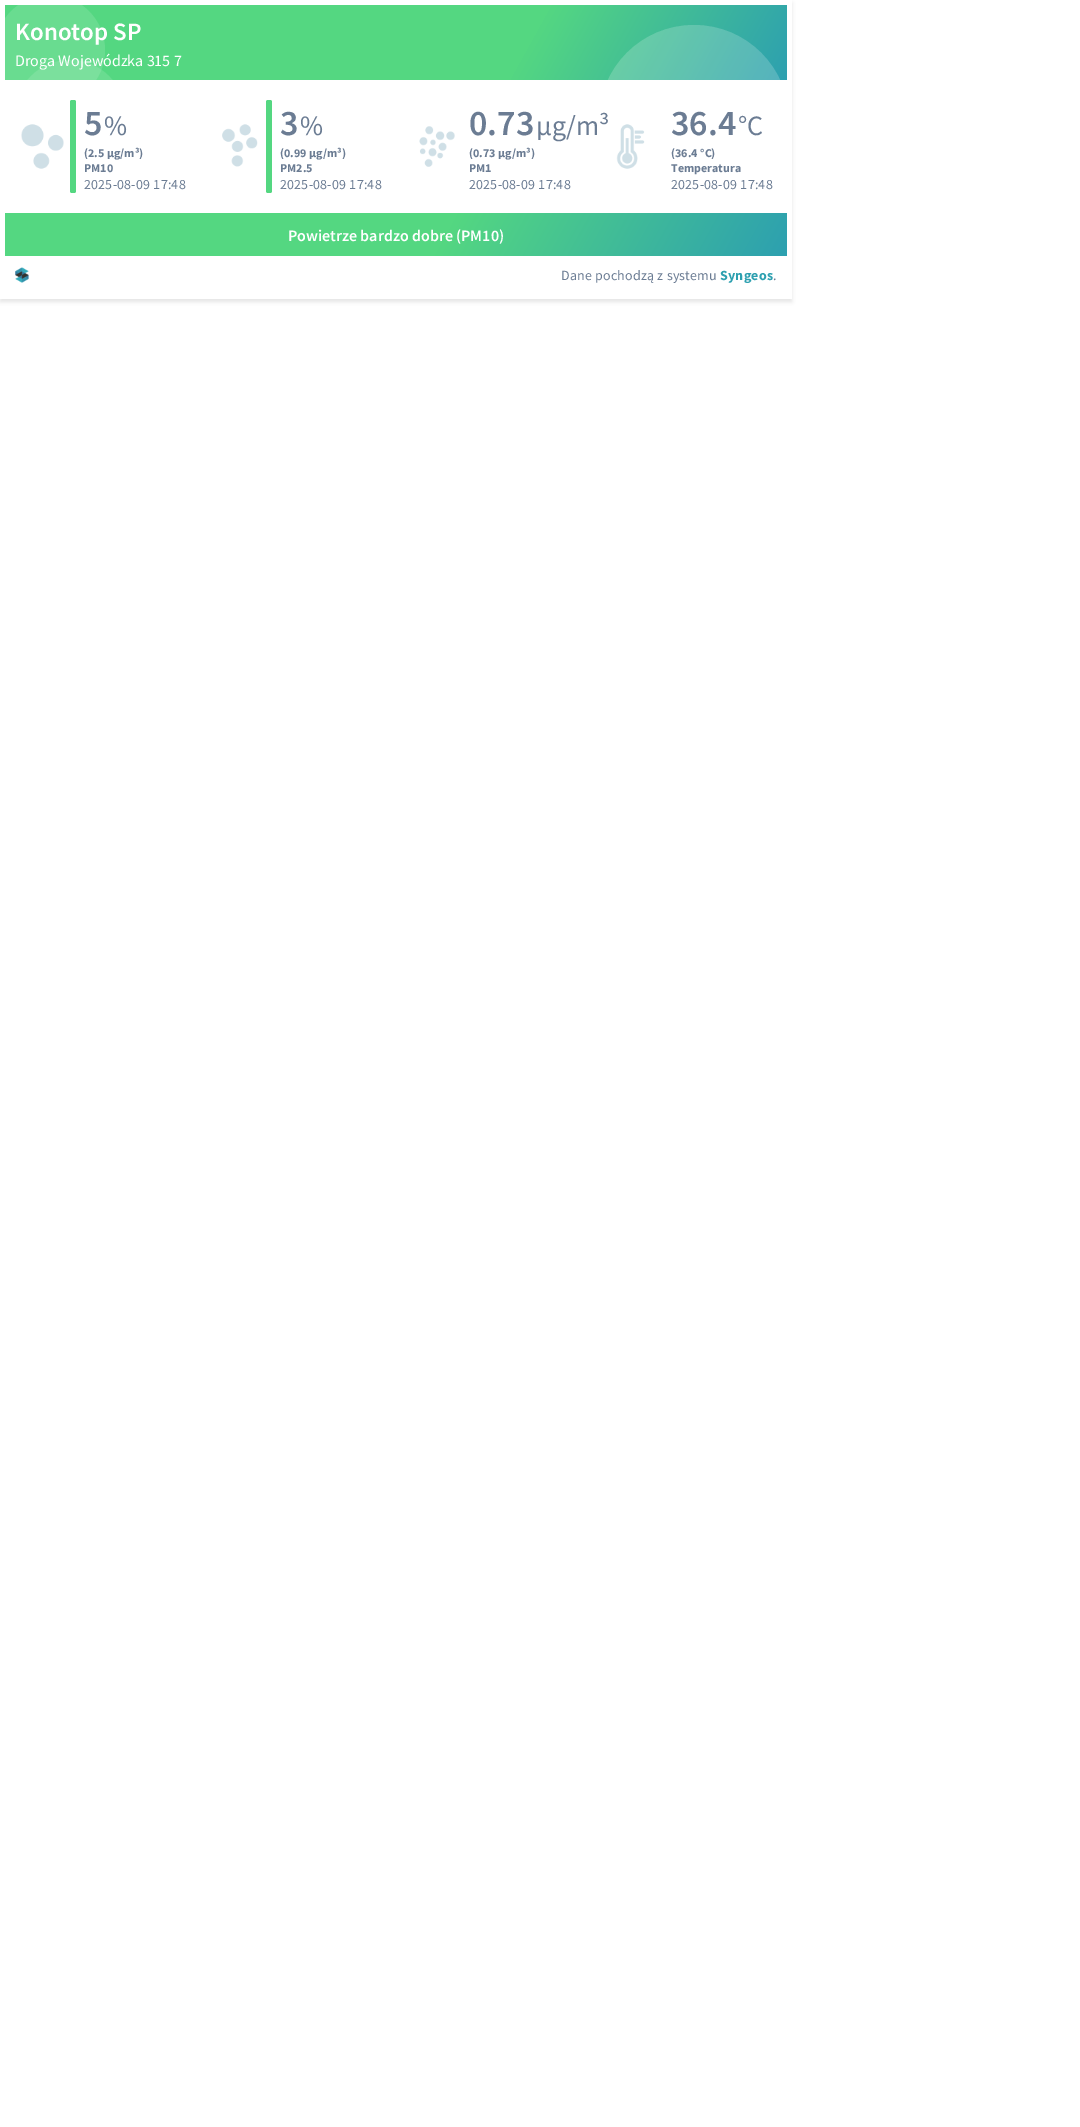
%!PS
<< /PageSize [1080 2127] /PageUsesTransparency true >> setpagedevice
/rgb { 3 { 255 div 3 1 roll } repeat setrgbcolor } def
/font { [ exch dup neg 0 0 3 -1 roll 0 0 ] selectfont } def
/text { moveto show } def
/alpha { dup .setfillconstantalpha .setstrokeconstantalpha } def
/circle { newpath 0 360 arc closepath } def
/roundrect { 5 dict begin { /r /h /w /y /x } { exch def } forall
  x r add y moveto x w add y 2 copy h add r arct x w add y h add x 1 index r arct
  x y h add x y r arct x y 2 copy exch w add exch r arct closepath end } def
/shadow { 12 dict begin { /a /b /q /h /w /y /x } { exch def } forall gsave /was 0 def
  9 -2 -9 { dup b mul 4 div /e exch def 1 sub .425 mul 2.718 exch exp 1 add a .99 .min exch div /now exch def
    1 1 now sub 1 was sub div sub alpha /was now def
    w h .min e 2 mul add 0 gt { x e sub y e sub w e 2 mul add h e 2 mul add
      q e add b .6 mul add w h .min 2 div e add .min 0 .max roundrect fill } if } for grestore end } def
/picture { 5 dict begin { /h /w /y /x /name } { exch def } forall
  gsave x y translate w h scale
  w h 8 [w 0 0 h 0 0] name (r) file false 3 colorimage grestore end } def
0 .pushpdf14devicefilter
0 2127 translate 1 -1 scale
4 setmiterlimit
255 255 255 rgb
0 0 1080 2127 rectfill
gsave
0 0 moveto 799 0 rlineto 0 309 rlineto -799 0 rlineto closepath 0 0 moveto 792 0 rlineto 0 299 rlineto -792 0 rlineto closepath eoclip newpath
205 205 205 rgb
0 3 792 299 0 2 0.5 shadow
grestore
gsave 5 5 moveto 782 0 rlineto 0 75 rlineto -782 0 rlineto closepath clip newpath
<< /ShadingType 2 /ColorSpace /DeviceRGB /Coords [81 -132 711 217] /Extend [true true] /Function << /FunctionType 3 /Domain [0 1] /Functions [<< /FunctionType 2 /Domain [0 1] /C0 [0.329 0.843 0.506] /C1 [0.329 0.843 0.506] /N 1 >> << /FunctionType 2 /Domain [0 1] /C0 [0.329 0.843 0.506] /C1 [0.176 0.627 0.69] /N 1 >>] /Bounds [0.66] /Encode [0 1 0 1] >> >> shfill grestore
84 215 129 rgb
70 100 6 93 2 roundrect fill
gsave
5 5 782 75 rectclip
0.12 alpha
253 253 253 rgb
50 50 55 circle fill
grestore
0.12 alpha
253 253 253 rgb
70 60 moveto 30.5 0 55 24.5 55 55 rcurveto 0 -35 rlineto -110 0 rlineto 0 35 rlineto 0 -30.5 24.5 -55 55 -55 rcurveto closepath fill
1 alpha
(img_01.rgb) 21 124 43 45 picture
(img_02.rgb) 222 124 36 43 picture
84 215 129 rgb
266 100 6 93 2 roundrect fill
(img_03.rgb) 419 126 36 41 picture
(img_04.rgb) 616 124 29 45 picture
gsave 5 213 moveto 782 0 rlineto 0 43 rlineto -782 0 rlineto closepath clip newpath
<< /ShadingType 2 /ColorSpace /DeviceRGB /Coords [88 64 704 405] /Extend [true true] /Function << /FunctionType 3 /Domain [0 1] /Functions [<< /FunctionType 2 /Domain [0 1] /C0 [0.329 0.843 0.506] /C1 [0.329 0.843 0.506] /N 1 >> << /FunctionType 2 /Domain [0 1] /C0 [0.329 0.843 0.506] /C1 [0.176 0.627 0.69] /N 1 >>] /Bounds [0.56] /Encode [0 1 0 1] >> >> shfill grestore
(img_05.rgb) 15 267 14 16 picture
/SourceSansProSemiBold-SemiBold 25 font
255 255 255 rgb
(Konotop SP) 15 40 text
/SourceSansPro-Regular 16 font
(Droga Wojewódzka 315 7) 15 66 text
/SourceSansProSemiBold-SemiBold 36 font
107 124 147 rgb
(5) 84 135 text
/SourceSansPro-Regular 28 font
(%) 104 135 text
/SourceSansPro-Bold 12 font
(\(2.5 µg/m³\)) 84 157 text
(PM10) 84 172 text
/SourceSansPro-Regular 14 font
84 189 moveto 0.2 0 (2025-08-09 17:48) ashow
/SourceSansProSemiBold-SemiBold 36 font
(3) 280 135 text
/SourceSansPro-Regular 28 font
(%) 300 135 text
/SourceSansPro-Bold 12 font
(\(0.99 µg/m³\)) 280 157 text
(PM2.5) 280 172 text
/SourceSansPro-Regular 14 font
280 189 moveto 0.2 0 (2025-08-09 17:48) ashow
/SourceSansProSemiBold-SemiBold 36 font
(0.73) 469 135 text
/SourceSansPro-Regular 28 font
(µg/m³) 536 135 text
/SourceSansPro-Bold 12 font
(\(0.73 µg/m³\)) 469 157 text
(PM1) 469 172 text
/SourceSansPro-Regular 14 font
469 189 moveto 0.2 0 (2025-08-09 17:48) ashow
/SourceSansProSemiBold-SemiBold 36 font
(36.4) 671 135 text
/SourceSansPro-Regular 28 font
(°C) 738 135 text
/SourceSansPro-Bold 12 font
(\(36.4 °C\)) 671 157 text
(Temperatura) 671 172 text
/SourceSansPro-Regular 14 font
671 189 moveto 0.2 0 (2025-08-09 17:48) ashow
gsave
5 5 782 75 rectclip
0.19 alpha
253 253 253 rgb
694 120 95 circle fill
grestore
/SourceSansProSemiBold-SemiBold 16 font
255 255 255 rgb
(Powietrze bardzo dobre) 288 241 text
(\(PM10\)) 456 241 text
/SourceSansPro-Regular 14 font
107 124 147 rgb
561 280 moveto 0.2 0 (Dane pochodzą z systemu) ashow
/SourceSansPro-Bold 14 font
45 160 176 rgb
720 280 moveto 0.2 0 (Syngeos) ashow
/SourceSansPro-Regular 14 font
107 124 147 rgb
773 280 moveto 0.2 0 (.) ashow
.poppdf14devicefilter showpage
